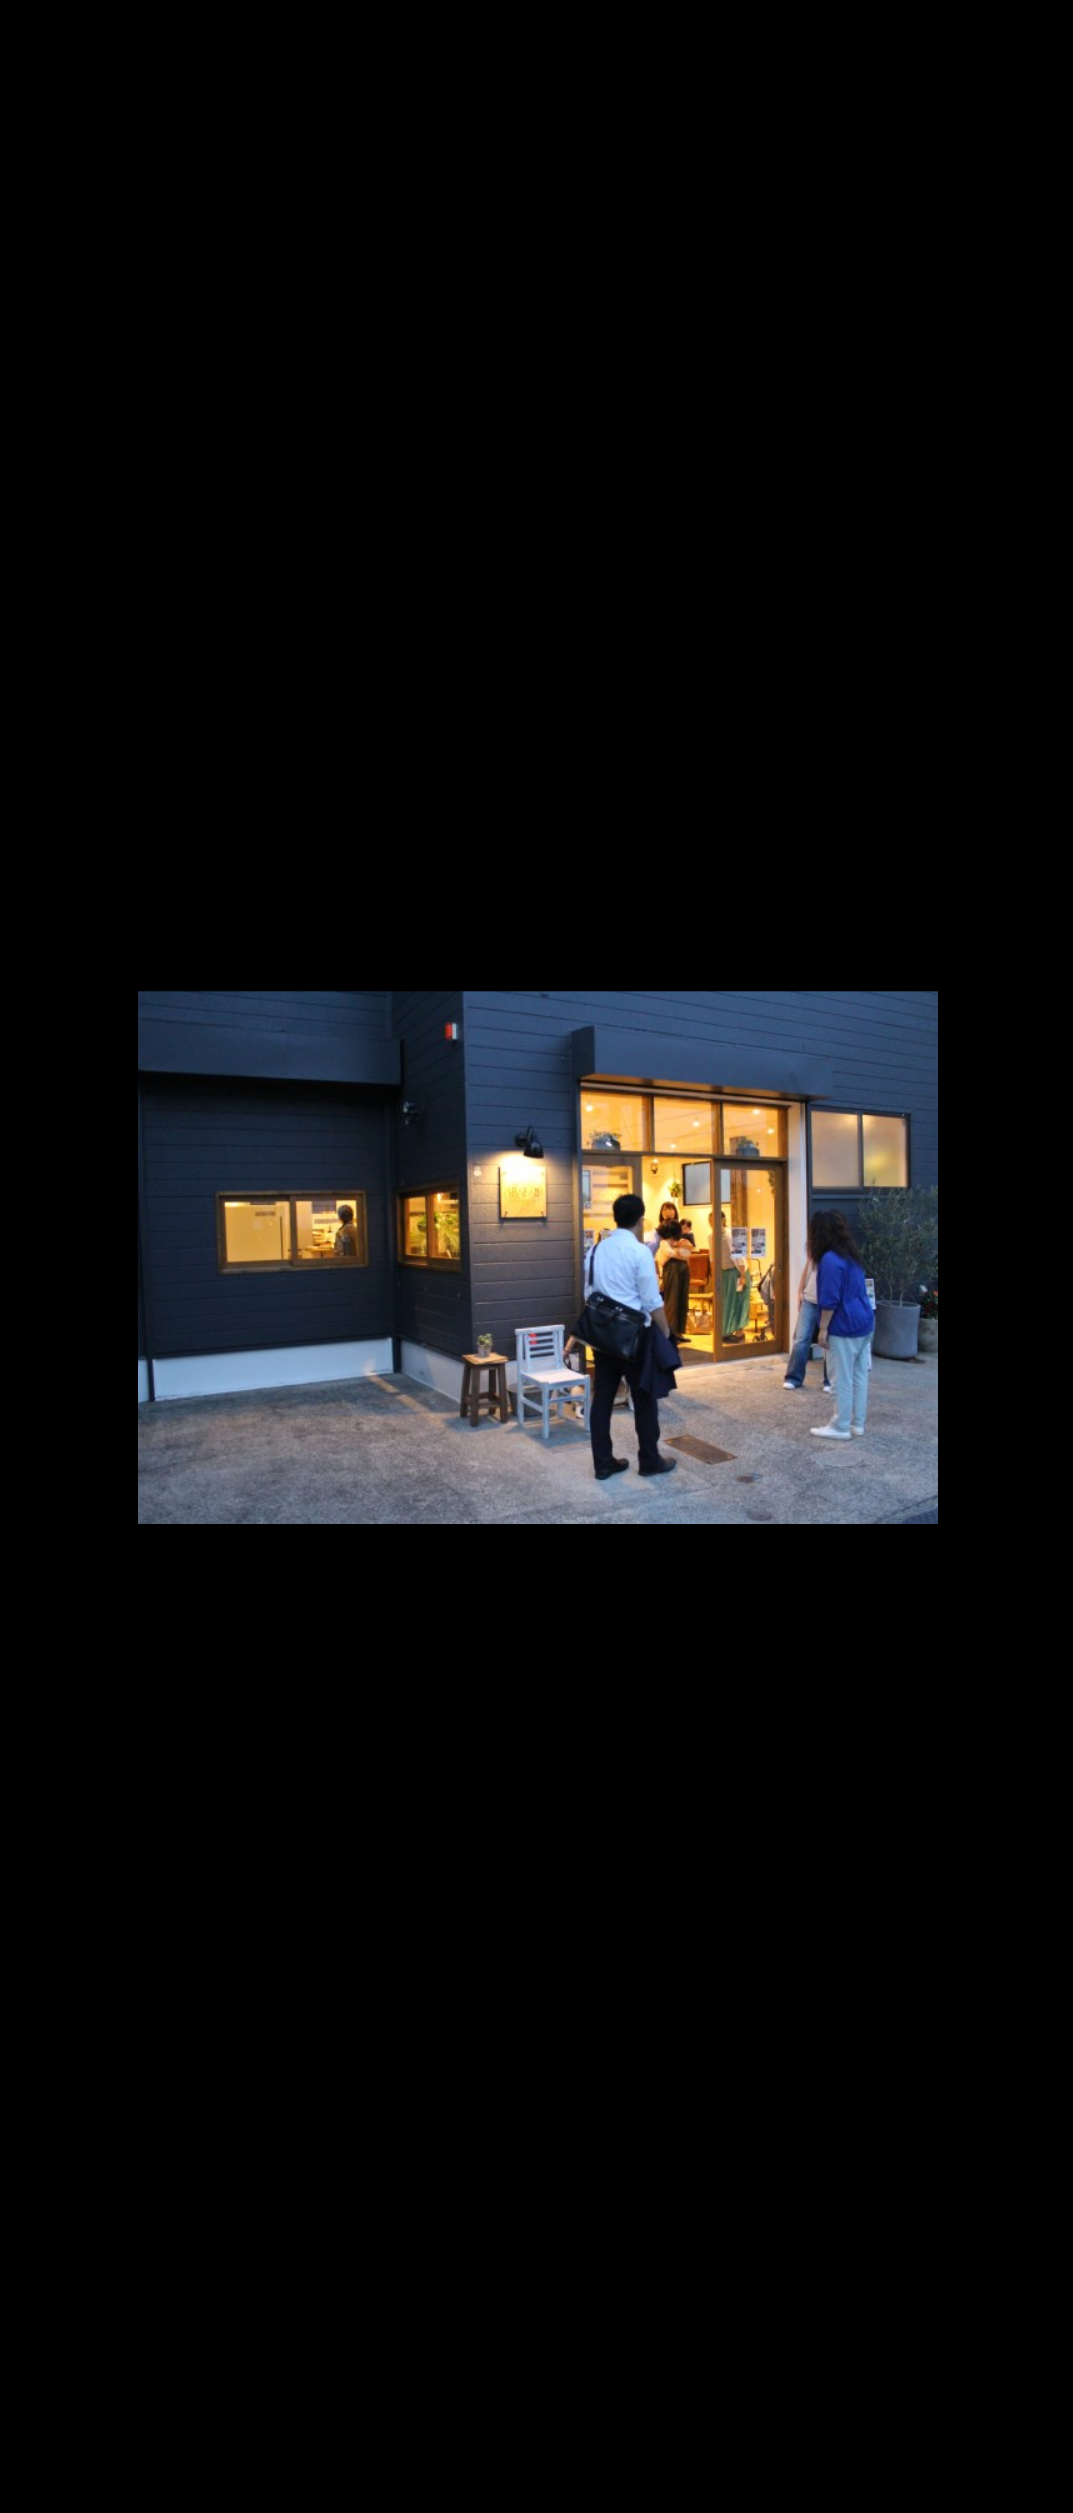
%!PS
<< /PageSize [1073 2513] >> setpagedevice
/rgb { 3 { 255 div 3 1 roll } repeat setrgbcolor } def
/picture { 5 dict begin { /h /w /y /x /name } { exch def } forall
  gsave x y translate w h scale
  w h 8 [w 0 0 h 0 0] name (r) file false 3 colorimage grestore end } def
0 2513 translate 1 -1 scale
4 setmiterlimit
0 0 0 rgb
0 0 1073 2513 rectfill
(img_01.rgb) 138 991 800 533 picture
showpage
